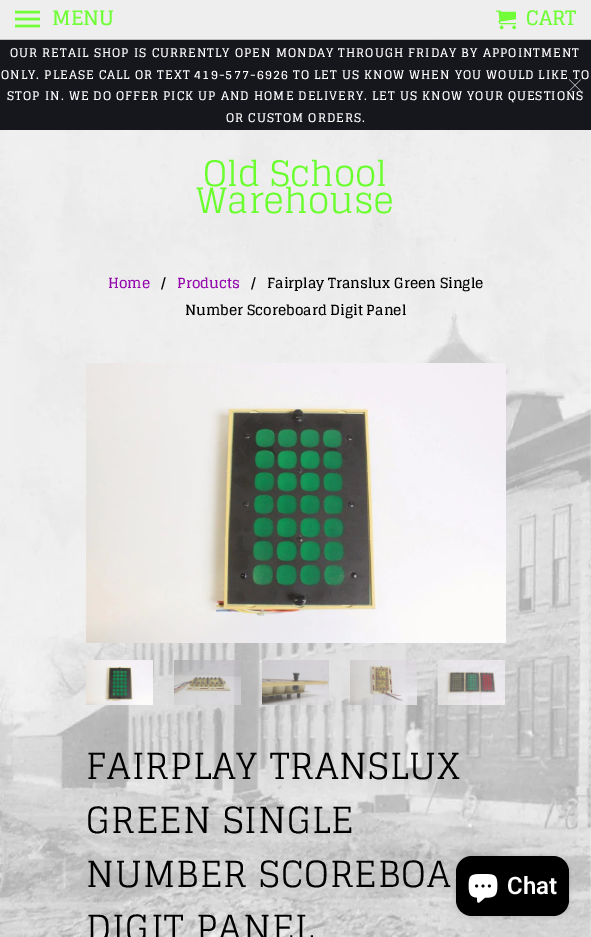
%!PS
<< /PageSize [591 937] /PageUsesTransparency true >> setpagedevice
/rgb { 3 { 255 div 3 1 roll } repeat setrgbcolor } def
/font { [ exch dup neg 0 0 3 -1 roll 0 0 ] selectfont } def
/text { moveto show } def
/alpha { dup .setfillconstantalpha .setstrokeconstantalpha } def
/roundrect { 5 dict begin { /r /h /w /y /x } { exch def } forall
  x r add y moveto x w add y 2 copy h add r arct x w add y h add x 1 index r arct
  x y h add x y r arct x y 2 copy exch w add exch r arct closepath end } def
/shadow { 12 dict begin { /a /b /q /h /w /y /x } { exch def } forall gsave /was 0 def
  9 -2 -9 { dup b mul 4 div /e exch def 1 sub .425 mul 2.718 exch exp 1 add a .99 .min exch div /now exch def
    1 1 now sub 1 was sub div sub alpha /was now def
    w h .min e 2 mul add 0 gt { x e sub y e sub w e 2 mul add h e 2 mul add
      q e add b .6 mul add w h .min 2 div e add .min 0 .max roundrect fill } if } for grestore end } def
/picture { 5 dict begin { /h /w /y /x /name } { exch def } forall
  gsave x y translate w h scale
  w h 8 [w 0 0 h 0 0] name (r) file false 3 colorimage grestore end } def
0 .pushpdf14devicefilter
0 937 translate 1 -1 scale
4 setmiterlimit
255 255 255 rgb
0 0 591 937 rectfill
(img_01.rgb) 0 0 591 937 picture
0.95 alpha
238 238 238 rgb
0 0 591 39 rectfill
1 alpha
190 190 190 rgb
0 39 591 1 rectfill
(img_02.rgb) 15 10 25 18 picture
(img_03.rgb) 496 10 20 20 picture
22 22 29 rgb
0 40 591 90 rectfill
(img_05.rgb) 86 363 420 280 picture
(img_06.rgb) 86 660 67 45 picture
(img_07.rgb) 174 660 67 45 picture
(img_08.rgb) 262 660 67 45 picture
(img_09.rgb) 350 660 67 45 picture
(img_10.rgb) 438 660 67 45 picture
0 0 0 rgb
456 856 113 60 16 2.5 0.15 shadow
456 856 113 60 16 roundrect fill
(img_11.rgb) 468 874 30 29 picture
/Glegoo-Bold 20 font
113 253 56 rgb
(MENU) 52 25 text
(CART) 526 25 text
/Glegoo-Bold 12 font
255 255 255 rgb
10 57 moveto 1 0 (OUR RETAIL SHOP IS CURRENTLY OPEN MONDAY THROUGH FRIDAY BY APPOINTMENT) ashow
1 79 moveto 1 0 (ONLY. PLEASE CALL OR TEXT 419-577-6926 TO LET US KNOW WHEN YOU WOULD LIKE TO) ashow
7 100 moveto 1 0 (STOP IN. WE DO OFFER PICK UP AND HOME DELIVERY. LET US KNOW YOUR QUESTIONS) ashow
226 122 moveto 1 0 (OR CUSTOM ORDERS.) ashow
(img_04.rgb) 569 79 12 13 picture
/Glegoo-Regular 35 font
106 254 46 rgb
(Old School) 203 186 text
(Warehouse) 196 213 text
/Glegoo-Bold 14 font
149 8 174 rgb
(Home) 108 288 text
0 0 0 rgb
(/) 161 288 text
149 8 174 rgb
(Products) 177 288 text
0 0 0 rgb
(/) 251 288 text
(Fairplay Translux Green Single) 267 288 text
(Number Scoreboard Digit Panel) 185 315 text
/Glegoo-Regular 36 font
86 779 moveto 1 0 (FAIRPLAY TRANSLUX) ashow
86 833 moveto 1 0 (GREEN SINGLE) ashow
86 887 moveto 1 0 (NUMBER SCOREBOA) ashow
86 941 moveto 1 0 (DIGIT PANEL) ashow
/Roboto-SemiBold 24 font
255 255 255 rgb
(Chat) 507 894 text
.poppdf14devicefilter showpage
